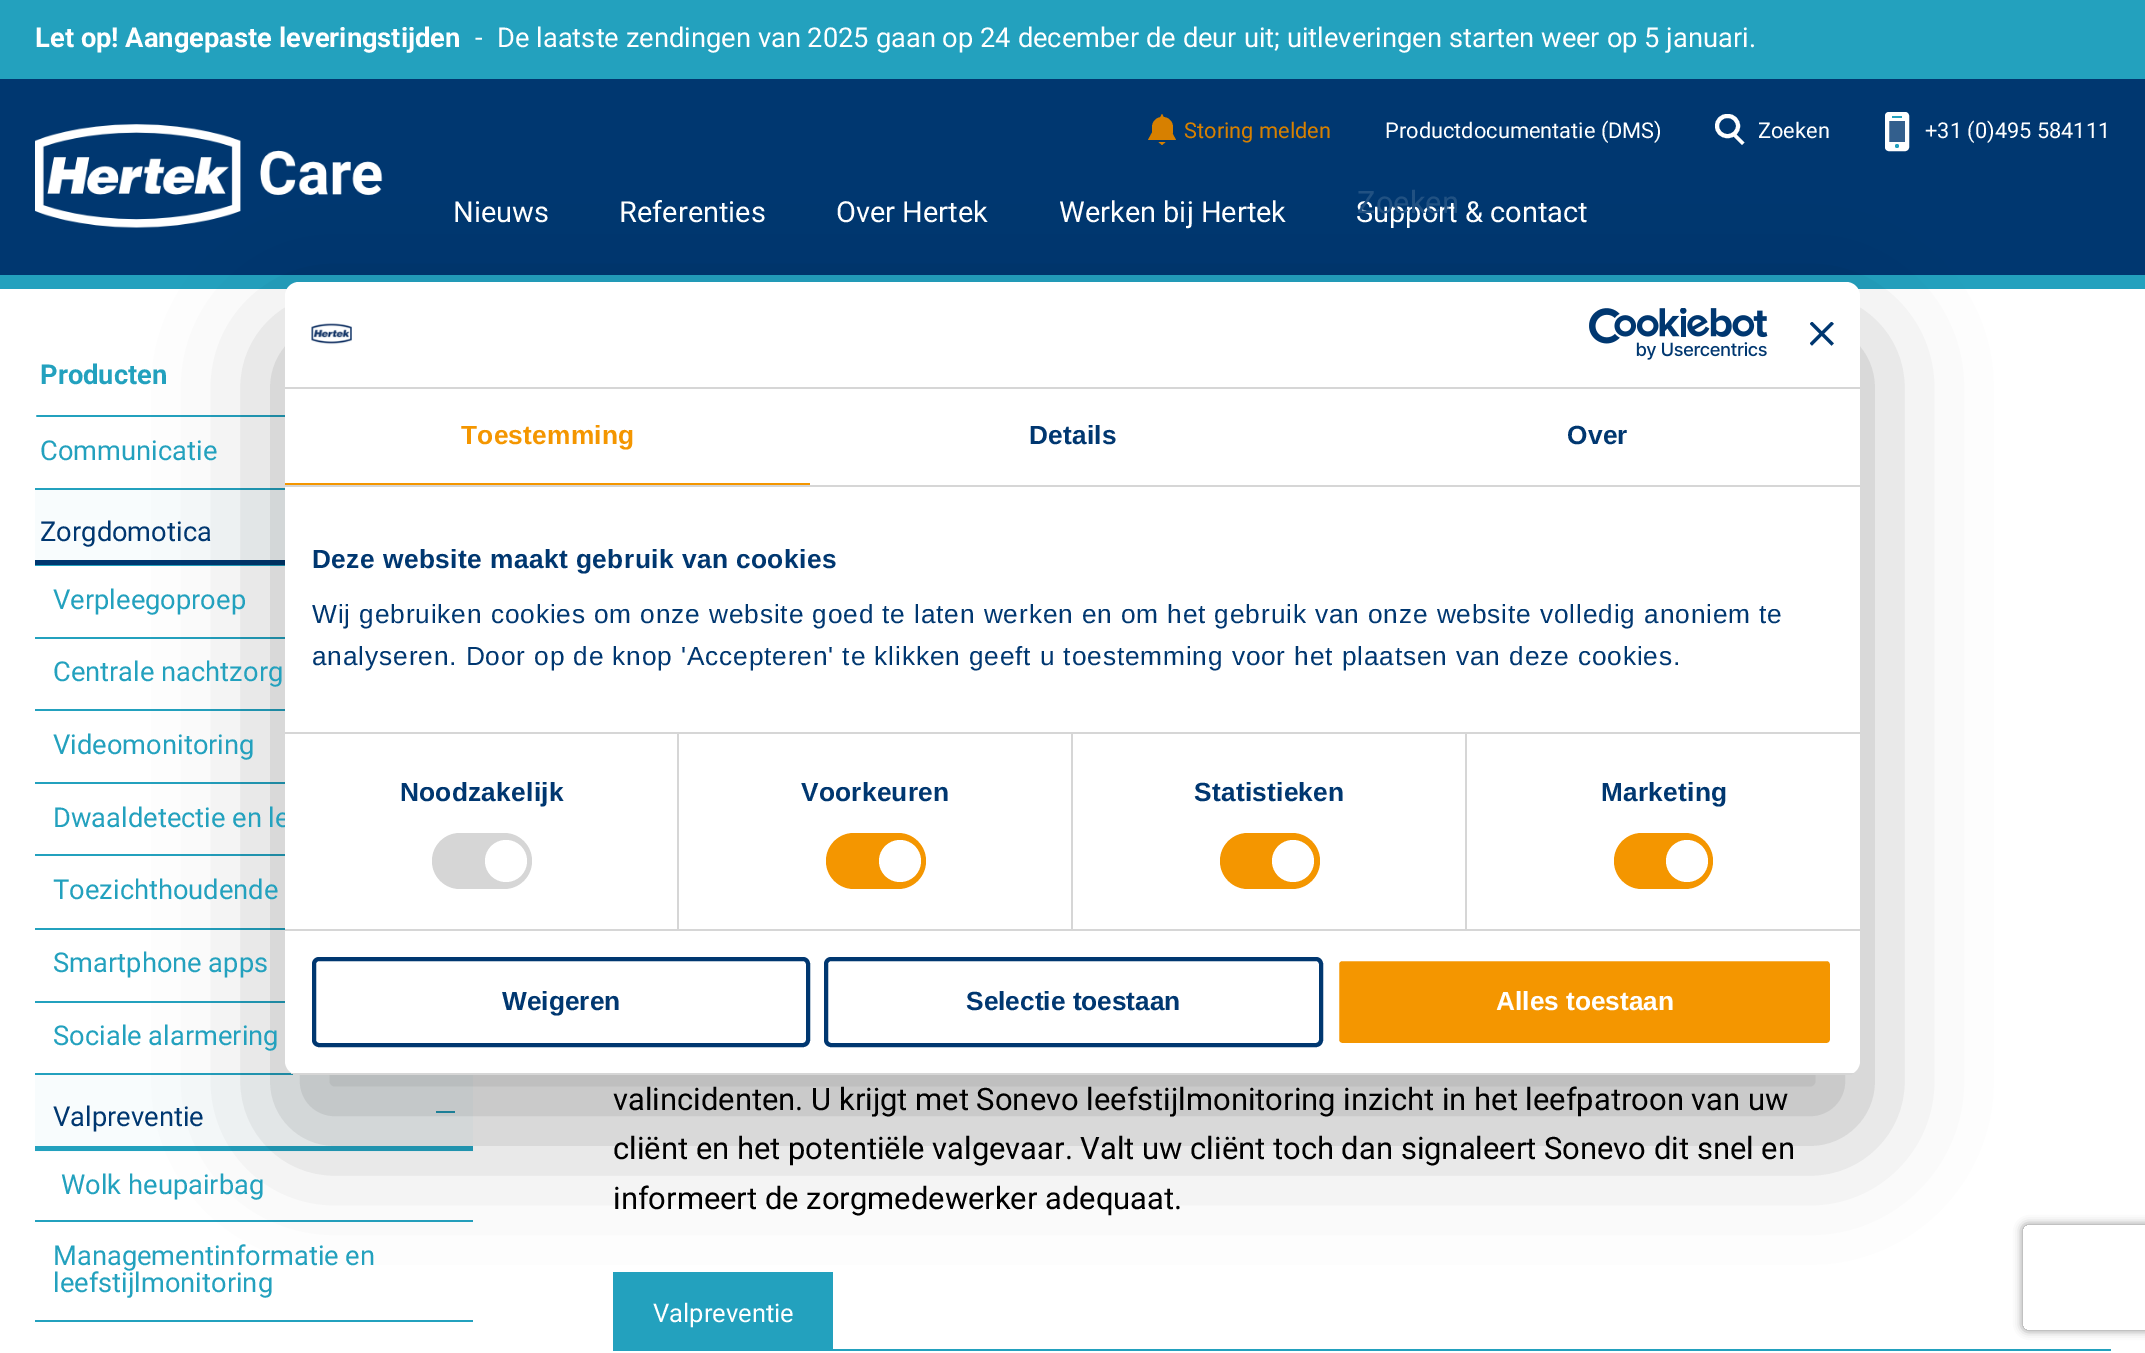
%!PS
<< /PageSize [2145 1353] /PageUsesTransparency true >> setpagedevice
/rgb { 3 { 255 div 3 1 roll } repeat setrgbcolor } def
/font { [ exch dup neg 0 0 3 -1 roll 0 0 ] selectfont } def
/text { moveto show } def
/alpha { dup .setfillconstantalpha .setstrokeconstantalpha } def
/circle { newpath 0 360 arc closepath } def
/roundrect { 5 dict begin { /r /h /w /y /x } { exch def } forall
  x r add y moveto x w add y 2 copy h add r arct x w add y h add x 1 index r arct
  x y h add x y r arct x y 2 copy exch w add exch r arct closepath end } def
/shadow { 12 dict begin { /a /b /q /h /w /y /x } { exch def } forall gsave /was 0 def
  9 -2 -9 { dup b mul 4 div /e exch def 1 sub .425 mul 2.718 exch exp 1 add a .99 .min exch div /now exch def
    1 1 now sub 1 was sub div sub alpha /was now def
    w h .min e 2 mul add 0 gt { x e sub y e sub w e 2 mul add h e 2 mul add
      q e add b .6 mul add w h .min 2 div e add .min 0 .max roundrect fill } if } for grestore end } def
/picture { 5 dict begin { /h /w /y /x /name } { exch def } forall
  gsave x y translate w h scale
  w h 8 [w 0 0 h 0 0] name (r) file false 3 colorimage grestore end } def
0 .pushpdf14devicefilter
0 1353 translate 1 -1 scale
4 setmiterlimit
255 255 255 rgb
0 0 2145 1353 rectfill
35 161 190 rgb
0 0 2145 79 rectfill
0 55 112 rgb
0 79 2145 196 rectfill
35 161 190 rgb
0 275 2145 14 rectfill
(img_01.rgb) 35 124 348 104 picture
215 128 0 rgb
1162.5 117 moveto 6 0 10.5 4.5 10.5 10.5 rcurveto 0 3.5 rlineto 0 4 -3 7 -7 7 rcurveto -7 0 rlineto -4 0 -7 -3 -7 -7 rcurveto 0 -3.5 rlineto 0 -6 4.5 -10.5 10.5 -10.5 rcurveto closepath fill
1158.5 142 moveto 7 0 rlineto -3.5 3 rlineto closepath 1176 140 moveto -28 0 rlineto 14 -26 rlineto closepath fill
51 95 141 rgb
1889 121 16 21 rectfill
255 255 255 rgb
4 setlinewidth
1887 114 20 35 2 roundrect stroke
1887 116 21 5 rectfill
1887 142 21 5 rectfill
35 161 190 rgb
1892 116 10 2 rectfill
1897 146 2 circle fill
255 255 255 rgb
1717 116 21 20 10 roundrect stroke
1734.5 132.5 moveto 10 10 rlineto -2.5 2.5 rlineto -10 -10 rlineto closepath fill
35 161 190 rgb
35 415 250 2 rectfill
255 255 255 rgb
18 setlinewidth
27 328 454 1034 rectstroke
35 161 190 rgb
35 488 250 2 rectfill
0.03 alpha
35 490 250 70 rectfill
1 alpha
0 55 112 rgb
35 560 250 5 rectfill
35 161 190 rgb
35 565 250 1 rectfill
35 637 250 2 rectfill
35 709 250 2 rectfill
35 782 250 2 rectfill
35 854 250 2 rectfill
35 928 250 2 rectfill
35 1001 250 2 rectfill
35 1073 264 2 rectfill
0.03 alpha
35 1073 438 79 rectfill
1 alpha
35 1146 438 5 rectfill
436 1111 19 2 rectfill
35 1220 438 2 rectfill
35 1320 438 2 rectfill
613 1349 1498 2 rectfill
613 1272 220 77 rectfill
0 0 0 rgb
285 338 1575 793 14 59.5 0.3 shadow
gsave
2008 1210 moveto 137 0 rlineto 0 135 rlineto -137 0 rlineto closepath 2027 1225 moveto 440 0 rlineto 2 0 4 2 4 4 rcurveto 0 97 rlineto 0 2 -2 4 -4 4 rcurveto -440 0 rlineto -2 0 -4 -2 -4 -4 rcurveto 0 -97 rlineto 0 -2 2 -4 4 -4 rcurveto closepath eoclip newpath
128 128 128 rgb
2023 1225 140 105 4 4.5 1 shadow
grestore
/Roboto-Bold 27.3 font
255 255 255 rgb
(Let op! Aangepaste leveringstijden) 35 47 text
/Roboto-Regular 27.3 font
(-) 475 47 text
(De laatste zendingen van 2025 gaan op 24 december de deur uit; uitleveringen starten weer op 5 januari.) 497 47 text
/Roboto-Regular 29 font
(Nieuws) 453 222 text
(Referenties) 619 222 text
(Over Hertek) 836 222 text
(Werken bij Hertek) 1059 222 text
(Support & contact) 1356 222 text
/Roboto-Regular 21.8 font
215 128 0 rgb
(Storing melden) 1184 138 text
255 255 255 rgb
(Productdocumentatie \(DMS\)) 1385 138 text
(+31 \(0\)495 584111) 1925 138 text
(Zoeken) 1758 138 text
/Roboto-Regular 30.95 font
33 81 130 rgb
(Zoeken) 1357 213 text
/Roboto-Bold 27.3 font
35 161 190 rgb
(Producten) 40 384 text
/Roboto-Regular 27.3 font
(Communicatie) 40 460 text
0 55 112 rgb
(Zorgdomotica) 40 541 text
35 161 190 rgb
(Verpleegoproep) 53 609 text
(Centrale nachtzorg) 53 681 text
(Videomonitoring) 53 754 text
(Dwaaldetectie en le) 53 827 text
(Toezichthoudende) 53 899 text
(Smartphone apps) 53 972 text
(Sociale alarmering) 53 1045 text
0 55 112 rgb
(Valpreventie) 53 1126 text
35 161 190 rgb
(Wolk heupairbag) 61 1194 text
(Managementinformatie en) 53 1265 text
(leefstijlmonitoring) 53 1292 text
/Roboto-Regular 30.95 font
0 0 0 rgb
(valincidenten. U krijgt met Sonevo leefstijlmonitoring inzicht in het leefpatroon van uw) 613 1110 text
(cliënt en het potentiële valgevaar. Valt uw cliënt toch dan signaleert Sonevo dit snel en) 613 1159 text
(informeert de zorgmedewerker adequaat.) 613 1209 text
/Roboto-Regular 25.5 font
255 255 255 rgb
(Valpreventie) 653 1322 text
285 282 1575 793 14 roundrect fill
214 214 214 rgb
285 387 1575 2 rectfill
(img_02.rgb) 311 323 41 22 picture
(img_03.rgb) 1589 308 179 52 picture
(img_04.rgb) 1810 322 24 24 picture
285 485 1575 2 rectfill
244 150 0 rgb
285 483 525 2 rectfill
/LiberationSans-Bold 26.25 font
461 444 moveto 0.25 0 (Toestemming) ashow
0 55 112 rgb
1029 444 moveto 0.25 0 (Details) ashow
1567 444 moveto 0.25 0 (Over) ashow
312 568 moveto 0.45 0 (Deze website maakt gebruik van cookies) ashow
/LiberationSans-Regular 26.25 font
312 623 moveto 0.88 0 (Wij gebruiken cookies om onze website goed te laten werken en om het gebruik van onze website volledig anoniem te) ashow
312 665 moveto 0.88 0 (analyseren. Door op de knop 'Accepteren' te klikken geeft u toestemming voor het plaatsen van deze cookies.) ashow
214 214 214 rgb
285 929 1575 2 rectfill
677 733 2 196 rectfill
/LiberationSans-Bold 26.25 font
0 55 112 rgb
400 801 moveto 0.25 0 (Noodzakelijk) ashow
214 214 214 rgb
432 833 100 56 28 roundrect fill
255 255 255 rgb
506 861 21 circle fill
214 214 214 rgb
1071 733 2 196 rectfill
0 55 112 rgb
801 801 moveto 0.25 0 (Voorkeuren) ashow
244 150 0 rgb
826 833 100 56 28 roundrect fill
255 255 255 rgb
900 861 21 circle fill
214 214 214 rgb
1465 733 2 196 rectfill
285 732 1575 2 rectfill
0 55 112 rgb
1194 801 moveto 0.25 0 (Statistieken) ashow
244 150 0 rgb
1220 833 100 56 28 roundrect fill
255 255 255 rgb
1293 861 21 circle fill
0 55 112 rgb
1601 801 moveto 0.25 0 (Marketing) ashow
244 150 0 rgb
1614 833 99 56 28 roundrect fill
255 255 255 rgb
1687 861 21 circle fill
gsave
285 282 1575 793 14 roundrect clip newpath
214 214 214 rgb
285 1073 1575 2 rectfill
grestore
0 55 112 rgb
4 setlinewidth
314 959 494 86 5 roundrect stroke
(Weigeren) 502 1010 text
826 959 495 86 5 roundrect stroke
(Selectie toestaan) 966 1010 text
244 150 0 rgb
1337 959 495 86 5 roundrect gsave fill grestore
255 255 255 rgb
stroke
(Alles toestaan) 1496 1010 text
.poppdf14devicefilter showpage
